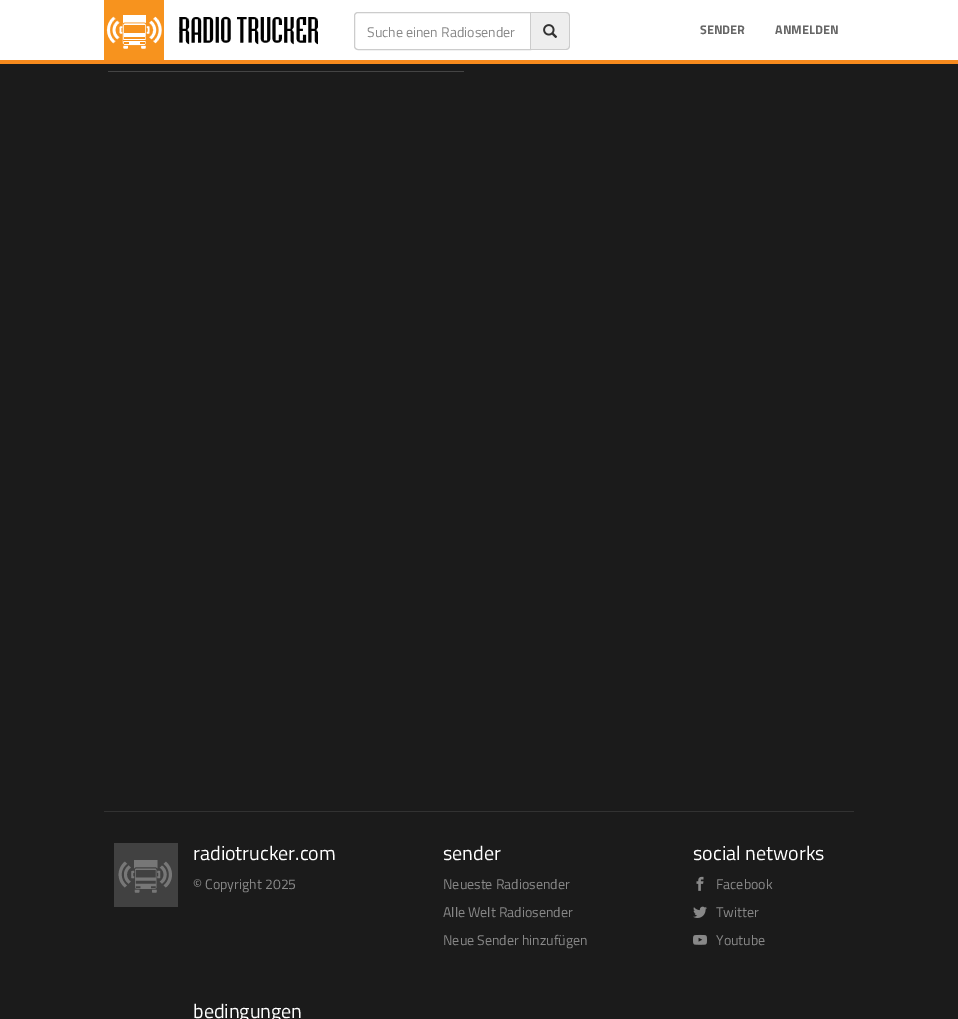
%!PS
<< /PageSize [958 1019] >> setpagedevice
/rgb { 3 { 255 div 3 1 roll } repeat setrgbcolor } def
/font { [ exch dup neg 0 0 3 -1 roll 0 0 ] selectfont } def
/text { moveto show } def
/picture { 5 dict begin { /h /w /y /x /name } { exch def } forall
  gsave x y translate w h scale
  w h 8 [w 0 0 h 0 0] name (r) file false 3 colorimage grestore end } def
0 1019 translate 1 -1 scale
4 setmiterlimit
27 27 27 rgb
0 0 958 1019 rectfill
255 255 255 rgb
0 0 958 60 rectfill
246 138 29 rgb
0 60 958 4 rectfill
(img_01.rgb) 104 0 214 60 picture
204 204 204 rgb
358 12.5 moveto 172.5 0 rlineto 0 37 rlineto -172.5 0 rlineto -2 0 -3.5 -1.5 -3.5 -3.5 rcurveto 0 -30 rlineto 0 -2 1.5 -3.5 3.5 -3.5 rcurveto closepath stroke
238 238 238 rgb
531 12 moveto 35 0 rlineto 2 0 4 2 4 4 rcurveto 0 30 rlineto 0 2 -2 4 -4 4 rcurveto -35 0 rlineto closepath fill
204 204 204 rgb
531 12 moveto 35 0 rlineto 2 0 4 2 4 4 rcurveto 0 30 rlineto 0 2 -2 4 -4 4 rcurveto -35 0 rlineto closepath 531 13 moveto 35 0 rlineto 1.5 0 3 1.5 3 3 rcurveto 0 30 rlineto 0 1.5 -1.5 3 -3 3 rcurveto -35 0 rlineto closepath eofill
(img_02.rgb) 543 24 15 14 picture
68 68 68 rgb
108 71 356 1 rectfill
50 50 50 rgb
104 811 750 1 rectfill
(img_03.rgb) 114 843 64 64 picture
(img_04.rgb) 696 876 8 15 picture
(img_05.rgb) 693 906 14 12 picture
(img_06.rgb) 693 934 14 11 picture
/TitilliumWeb-Regular 14 font
136 136 136 rgb
(Suche einen Radiosender) 367 37 text
/TitilliumWeb-Bold 12.5 font
102 102 102 rgb
(SENDER) 700 34 text
(ANMELDEN) 775 34 text
/TitilliumWeb-Regular 20 font
255 255 255 rgb
(radiotrucker.com) 193 860 text
/TitilliumWeb-Regular 14 font
136 136 136 rgb
(© Copyright 2025) 193 889 text
/TitilliumWeb-Regular 20 font
255 255 255 rgb
(sender) 443 860 text
/TitilliumWeb-Regular 14 font
136 136 136 rgb
(Neueste Radiosender) 443 889 text
(Alle Welt Radiosender) 443 917 text
(Neue Sender hinzufügen) 443 945 text
/TitilliumWeb-Regular 20 font
255 255 255 rgb
(social networks) 693 860 text
/TitilliumWeb-Regular 14 font
136 136 136 rgb
(Facebook) 716 889 text
(Twitter) 716 917 text
(Youtube) 716 945 text
/TitilliumWeb-Regular 20 font
255 255 255 rgb
(bedingungen) 193 1018 text
showpage
